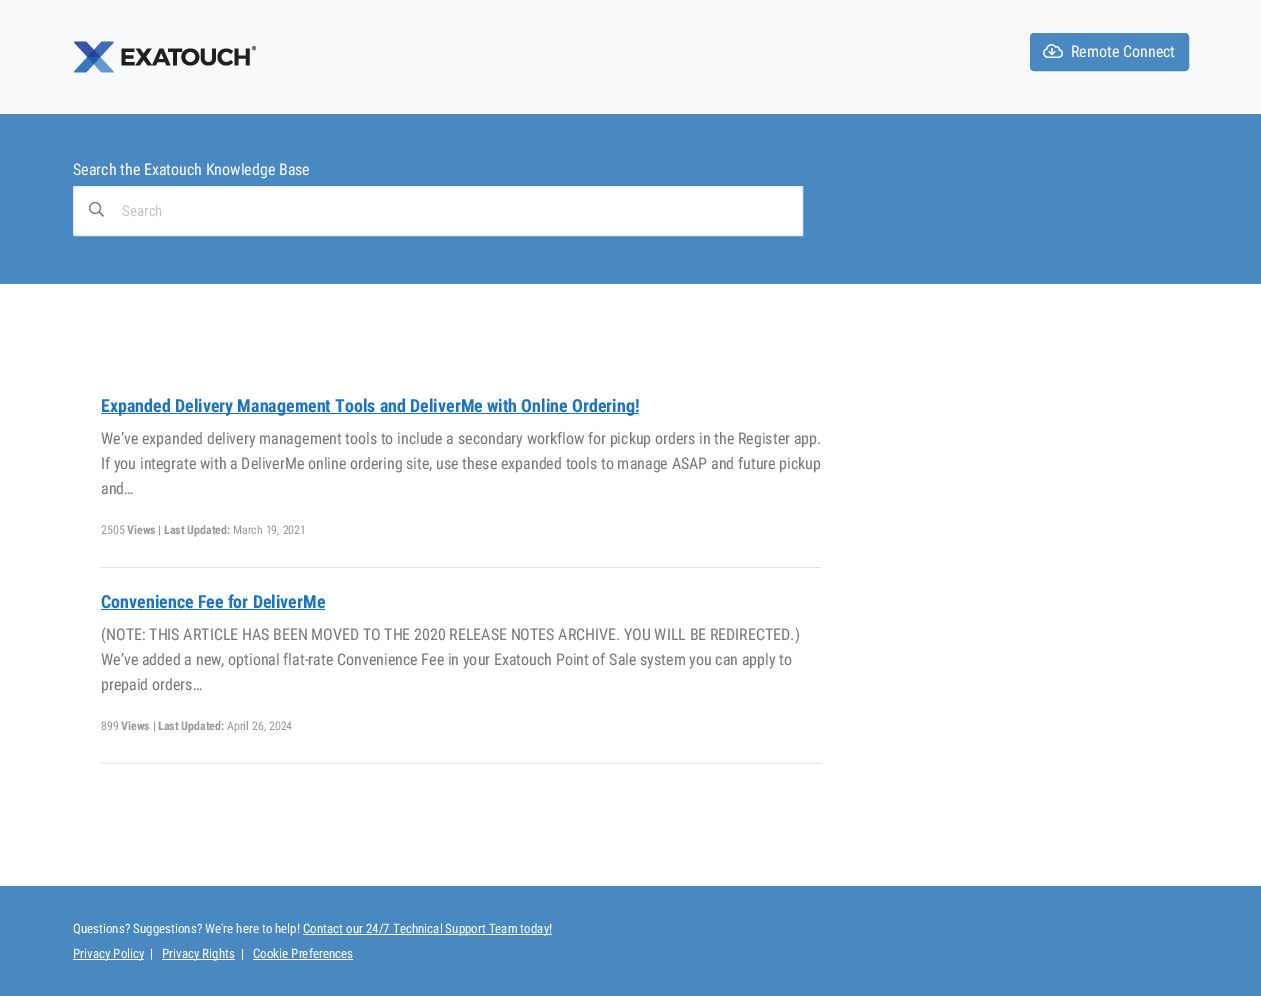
%!PS
<< /PageSize [1261 996] >> setpagedevice
/rgb { 3 { 255 div 3 1 roll } repeat setrgbcolor } def
/font { [ exch dup neg 0 0 3 -1 roll 0 0 ] selectfont } def
/text { moveto show } def
/roundrect { 5 dict begin { /r /h /w /y /x } { exch def } forall
  x r add y moveto x w add y 2 copy h add r arct x w add y h add x 1 index r arct
  x y h add x y r arct x y 2 copy exch w add exch r arct closepath end } def
/picture { 5 dict begin { /h /w /y /x /name } { exch def } forall
  gsave x y translate w h scale
  w h 8 [w 0 0 h 0 0] name (r) file false 3 colorimage grestore end } def
0 996 translate 1 -1 scale
4 setmiterlimit
255 255 255 rgb
0 0 1261 996 rectfill
248 249 250 rgb
0 0 1261 114 rectfill
(img_01.rgb) 74 41 183 32 picture
73 136 193 rgb
1030.5 33.5 158 37 3.5 roundrect gsave fill grestore
stroke
(img_02.rgb) 1043 44 20 14 picture
0 114 1261 170 rectfill
255 255 255 rgb
75 186.5 moveto 727.5 0 rlineto 0 49 rlineto -727.5 0 rlineto -1 0 -1.5 -0.5 -1.5 -1.5 rcurveto 0 -46 rlineto 0 -1 0.5 -1.5 1.5 -1.5 rcurveto closepath gsave fill grestore
235 235 235 rgb
stroke
(img_03.rgb) 89 201 15 16 picture
223 228 230 rgb
101 567 720 1 rectfill
30 115 190 rgb
101 413 538 1 rectfill
223 228 230 rgb
101 763 720 1 rectfill
30 115 190 rgb
101 609 224 1 rectfill
73 136 193 rgb
0 886 1261 110 rectfill
255 255 255 rgb
303 934 249 1 rectfill
73 959 71 1 rectfill
162 959 73 1 rectfill
253 959 100 1 rectfill
/RobotoCondensed-Regular 16 font
(Remote Connect) 1071 57 text
(Search the Exatouch Knowledge Base) 73 175 text
/RobotoCondensed-Regular 15 font
199 199 199 rgb
(Search) 122 216 text
/RobotoCondensed-Bold 18 font
30 115 190 rgb
(Expanded Delivery Management Tools and DeliverMe with Online Ordering!) 101 412 text
/RobotoCondensed-Regular 16 font
119 119 119 rgb
(We’ve expanded delivery management tools to include a secondary workflow for pickup orders in the Register app.) 101 444 text
(If you integrate with a DeliverMe online ordering site, use these expanded tools to manage ASAP and future pickup) 101 469 text
(and…) 101 494 text
/RobotoCondensed-Regular 12 font
153 153 153 rgb
(2505) 101 534 text
/RobotoCondensed-Bold 12 font
(Views) 127 534 text
/RobotoCondensed-Regular 12 font
(|) 158 534 text
/RobotoCondensed-Bold 12 font
(Last Updated:) 164 534 text
/RobotoCondensed-Regular 12 font
(March 19, 2021) 233 534 text
/RobotoCondensed-Bold 18 font
30 115 190 rgb
(Convenience Fee for DeliverMe) 101 608 text
/RobotoCondensed-Regular 16 font
119 119 119 rgb
(\(NOTE: THIS ARTICLE HAS BEEN MOVED TO THE 2020 RELEASE NOTES ARCHIVE. YOU WILL BE REDIRECTED.\)) 101 640 text
(We’ve added a new, optional flat-rate Convenience Fee in your Exatouch Point of Sale system you can apply to) 101 665 text
(prepaid orders…) 101 690 text
/RobotoCondensed-Regular 12 font
153 153 153 rgb
(899) 101 730 text
/RobotoCondensed-Bold 12 font
(Views) 121 730 text
/RobotoCondensed-Regular 12 font
(|) 153 730 text
/RobotoCondensed-Bold 12 font
(Last Updated:) 158 730 text
/RobotoCondensed-Regular 12 font
(April 26, 2024) 227 730 text
/RobotoCondensed-Regular 13 font
255 255 255 rgb
(Questions? Suggestions? We're here to help!) 73 933 text
(Contact our 24/7 Technical Support Team today!) 303 933 text
(Privacy Policy) 73 958 text
(|) 150 958 text
(Privacy Rights) 162 958 text
(|) 241 958 text
(Cookie Preferences) 253 958 text
showpage
